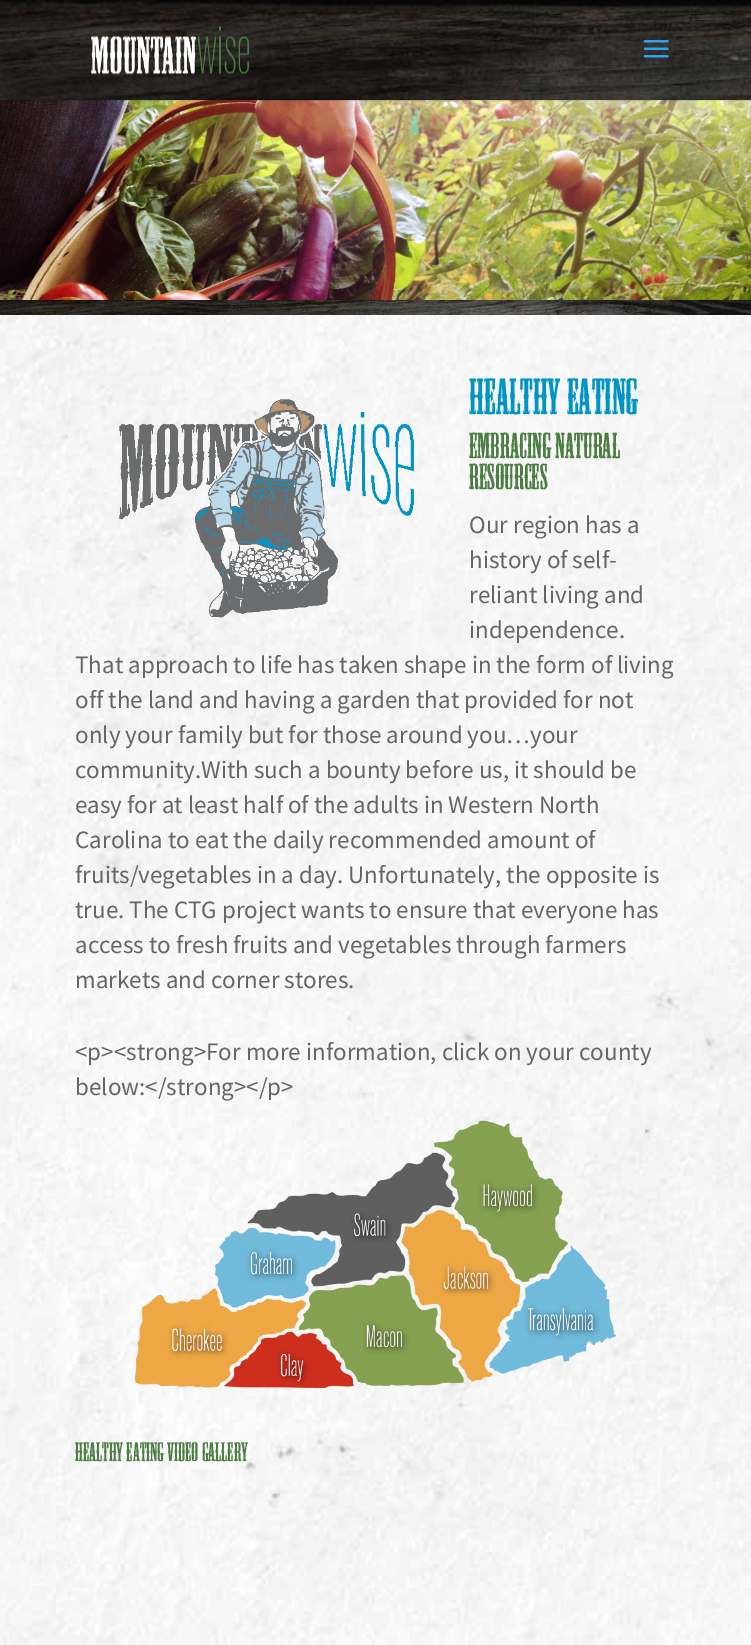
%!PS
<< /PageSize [751 1645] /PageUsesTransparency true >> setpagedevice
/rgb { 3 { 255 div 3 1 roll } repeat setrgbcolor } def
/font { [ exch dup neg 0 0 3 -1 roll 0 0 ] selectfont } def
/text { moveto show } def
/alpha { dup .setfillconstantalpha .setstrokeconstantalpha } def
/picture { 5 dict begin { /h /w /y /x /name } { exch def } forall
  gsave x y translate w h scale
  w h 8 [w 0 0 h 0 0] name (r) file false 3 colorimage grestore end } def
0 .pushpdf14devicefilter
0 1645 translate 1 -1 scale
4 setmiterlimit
255 255 255 rgb
0 0 751 1645 rectfill
(img_04.rgb) 0 100 751 200 picture
0.1 alpha
0 0 0 rgb
0 100 751 1 rectfill
1 alpha
(img_01.rgb) 0 0 751 100 picture
(img_02.rgb) 91 25 158 50 picture
(img_03.rgb) 643 40 26 18 picture
(img_05.rgb) 0 300 751 15 picture
(img_06.rgb) 0 315 751 1330 picture
(img_07.rgb) 119 399 295 219 picture
(img_08.rgb) 135 1120 481 268 picture
/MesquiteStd-Medium 47.5 font
0 149 198 rgb
(Healthy Eating) 469 414 text
/MesquiteStd-Medium 33.75 font
76 126 67 rgb
(Embracing Natural) 469 458 text
(Resources) 469 489 text
/SourceSansPro-Regular 25 font
102 102 102 rgb
(Our region has a) 469 533 text
(history of self-) 469 568 text
(reliant living and) 469 603 text
(independence.) 469 638 text
(That approach to life has taken shape in the form of living) 75 673 text
(off the land and having a garden that provided for not) 75 708 text
(only your family but for those around you…your) 75 743 text
(community.With such a bounty before us, it should be) 75 778 text
(easy for at least half of the adults in Western North) 75 813 text
(Carolina to eat the daily recommended amount of) 75 848 text
(fruits/vegetables in a day. Unfortunately, the opposite is) 75 883 text
(true. The CTG project wants to ensure that everyone has) 75 918 text
(access to fresh fruits and vegetables through farmers) 75 953 text
(markets and corner stores.) 75 988 text
(<p><strong>For more information, click on your county) 75 1060 text
(below:</strong></p>) 75 1095 text
/MesquiteStd-Medium 25 font
76 126 67 rgb
(Healthy Eating Video Gallery) 75 1461 text
.poppdf14devicefilter showpage
